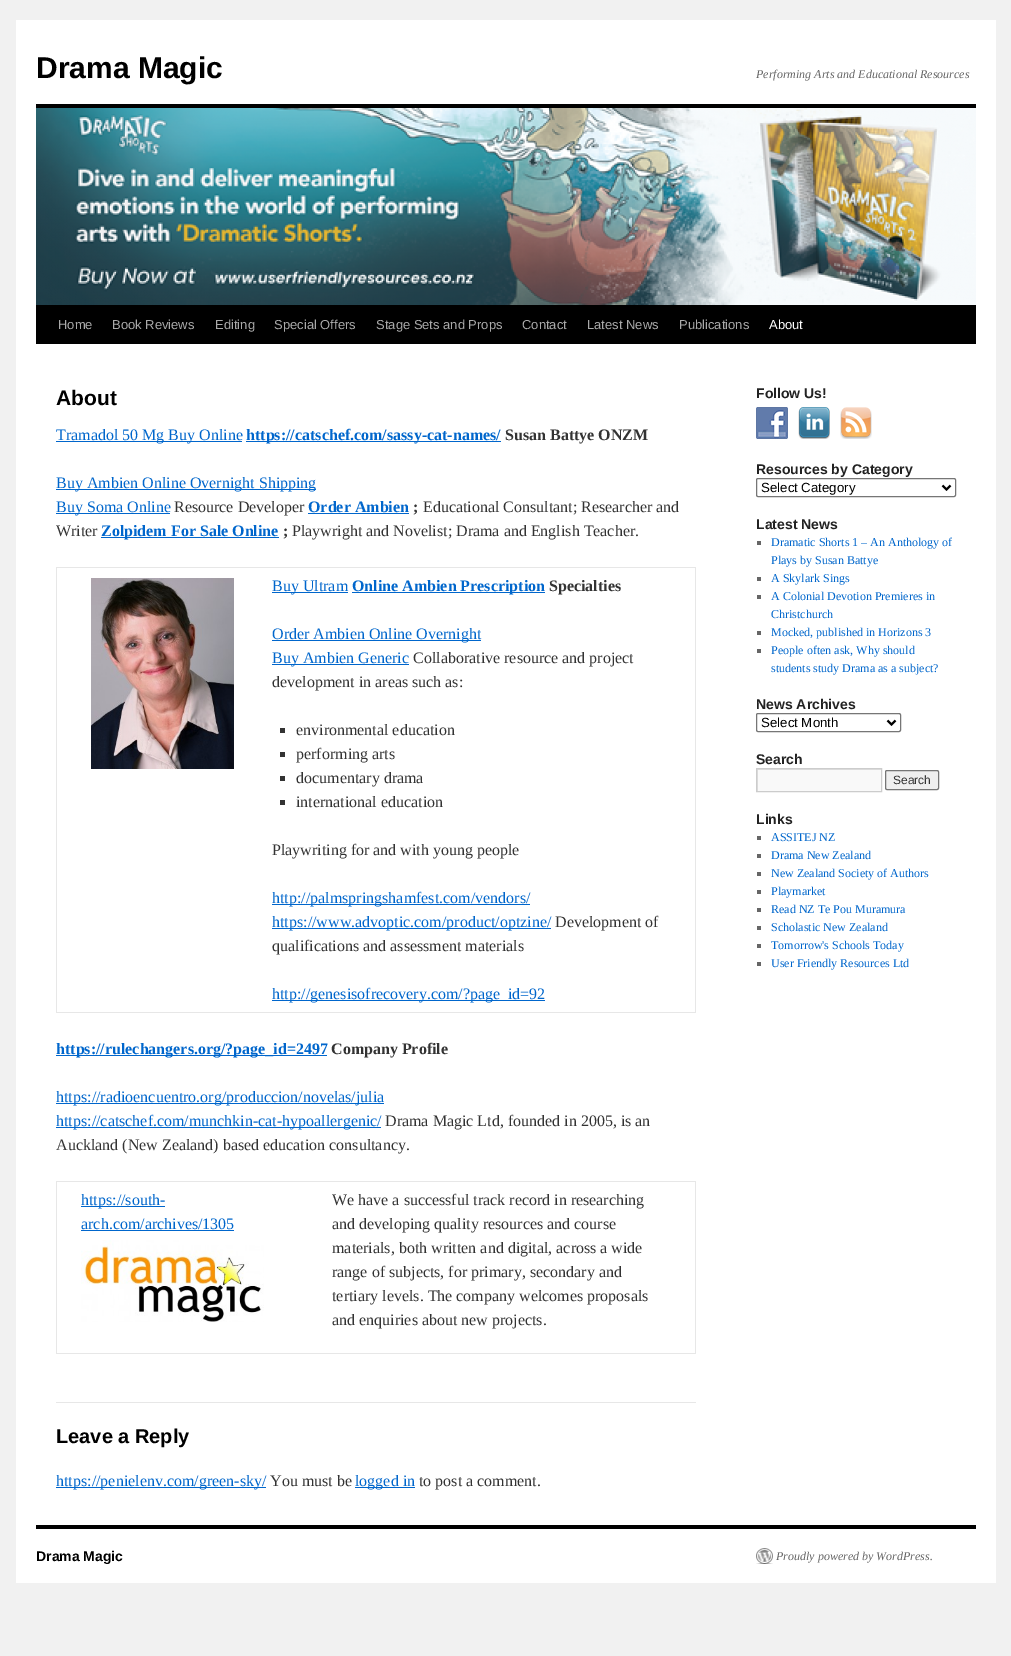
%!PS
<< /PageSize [1011 1656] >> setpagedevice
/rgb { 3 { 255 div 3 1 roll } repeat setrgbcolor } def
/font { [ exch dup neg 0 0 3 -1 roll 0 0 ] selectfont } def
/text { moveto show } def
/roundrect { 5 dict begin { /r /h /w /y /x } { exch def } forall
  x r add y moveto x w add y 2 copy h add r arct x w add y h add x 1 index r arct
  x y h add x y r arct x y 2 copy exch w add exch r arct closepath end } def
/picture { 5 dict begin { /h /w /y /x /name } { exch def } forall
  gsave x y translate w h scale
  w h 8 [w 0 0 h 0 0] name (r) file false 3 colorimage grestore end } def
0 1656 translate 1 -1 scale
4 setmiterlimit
241 241 241 rgb
0 0 1011 1656 rectfill
255 255 255 rgb
16 20 980 1563 rectfill
0 0 0 rgb
36 104 940 4 rectfill
36 305 940 39 rectfill
(img_01.rgb) 36 108 940 197 picture
0 102 204 rgb
56 441 186 1 rectfill
246 441 255 1 rectfill
56 489 260 1 rectfill
56 513 114 1 rectfill
308 513 101 1 rectfill
101 537 178 1 rectfill
231 231 231 rgb
56 567 640 1 rectfill
695 567 1 446 rectfill
56 1012 640 1 rectfill
56 567 1 446 rectfill
(img_02.rgb) 91 578 143 191 picture
0 102 204 rgb
272 592 76 1 rectfill
352 592 193 1 rectfill
272 640 209 1 rectfill
272 664 137 1 rectfill
51 51 51 rgb
280 728 5 5 rectfill
280 752 5 5 rectfill
280 776 5 5 rectfill
280 800 5 5 rectfill
0 102 204 rgb
272 904 258 1 rectfill
272 928 279 1 rectfill
272 1000 273 1 rectfill
56 1055 271 1 rectfill
56 1103 328 1 rectfill
56 1127 325 1 rectfill
231 231 231 rgb
56 1181 640 1 rectfill
695 1181 1 173 rectfill
56 1353 640 1 rectfill
56 1181 1 173 rectfill
0 102 204 rgb
81 1206 84 1 rectfill
81 1230 153 1 rectfill
(img_03.rgb) 81 1240 183 82 picture
231 231 231 rgb
56 1402 640 1 rectfill
0 102 204 rgb
56 1487 210 1 rectfill
355 1487 60 1 rectfill
(img_04.rgb) 756 407 32 32 picture
(img_05.rgb) 798 407 32 32 picture
(img_06.rgb) 840 407 32 32 picture
118 118 118 rgb
756.5 478.5 199 18 1.5 roundrect stroke
0 0 0 rgb
2 setlinewidth
942.5 485.5 moveto 4 4 rlineto 4 -4 rlineto stroke
102 102 102 rgb
757 541 4 4 rectfill
757 577 4 4 rectfill
757 595 4 4 rectfill
757 631 4 4 rectfill
757 649 4 4 rectfill
118 118 118 rgb
1 setlinewidth
756.5 713.5 144 18 1.5 roundrect stroke
0 0 0 rgb
2 setlinewidth
887.5 720.5 moveto 4 4 rlineto 4 -4 rlineto stroke
249 249 249 rgb
758 770 123 21 rectfill
gsave
757 769 124 22 rectclip
224 224 224 rgb
658 670 moveto 322 0 rlineto 0 220 rlineto -322 0 rlineto closepath 758 770 moveto 124 0 rlineto 0 22 rlineto -124 0 rlineto closepath eofill
grestore
204 204 204 rgb
1 setlinewidth
756.5 768.5 125 23 rectstroke
239 239 239 rgb
885.5 770.5 53 19 1.5 roundrect gsave fill grestore
118 118 118 rgb
stroke
102 102 102 rgb
757 836 4 4 rectfill
757 854 4 4 rectfill
757 872 4 4 rectfill
757 890 4 4 rectfill
757 908 4 4 rectfill
757 926 4 4 rectfill
757 944 4 4 rectfill
757 962 4 4 rectfill
0 0 0 rgb
36 1525 940 4 rectfill
(img_07.rgb) 756 1548 17 16 picture
/LiberationSans-Bold 30 font
(Drama Magic) 36 78 text
/LiberationSerif-Italic 12 font
102 102 102 rgb
(Performing Arts and Educational Resources) 756 78 text
/LiberationSans-Regular 13 font
170 170 170 rgb
(Home) 58 329 text
(Book Reviews) 112 329 text
(Editing) 215 329 text
(Special Offers) 274 329 text
(Stage Sets and Props) 376 329 text
(Contact) 522 329 text
(Latest News) 587 329 text
(Publications) 679 329 text
255 255 255 rgb
(About) 769 329 text
/LiberationSans-Bold 21 font
0 0 0 rgb
(About) 56 405 text
/LiberationSerif-Regular 16 font
0 102 204 rgb
(Tramadol 50 Mg Buy Online) 56 440 text
/LiberationSerif-Bold 16 font
(https://catschef.com/sassy-cat-names/) 246 440 text
51 51 51 rgb
(Susan Battye ONZM) 505 440 text
/LiberationSerif-Regular 16 font
0 102 204 rgb
(Buy Ambien Online Overnight Shipping) 56 488 text
(Buy Soma Online) 56 512 text
51 51 51 rgb
(Resource Developer) 174 512 text
/LiberationSerif-Bold 16 font
0 102 204 rgb
(Order Ambien) 308 512 text
51 51 51 rgb
(;) 413 512 text
/LiberationSerif-Regular 16 font
(Educational Consultant; Researcher and) 423 512 text
(Writer) 56 536 text
/LiberationSerif-Bold 16 font
0 102 204 rgb
(Zolpidem For Sale Online) 101 536 text
51 51 51 rgb
(;) 283 536 text
/LiberationSerif-Regular 16 font
(Playwright and Novelist; Drama and English Teacher.) 292 536 text
0 102 204 rgb
(Buy Ultram) 272 591 text
/LiberationSerif-Bold 16 font
(Online Ambien Prescription) 352 591 text
51 51 51 rgb
(Specialties) 549 591 text
/LiberationSerif-Regular 16 font
0 102 204 rgb
(Order Ambien Online Overnight) 272 639 text
(Buy Ambien Generic) 272 663 text
51 51 51 rgb
(Collaborative resource and project) 413 663 text
(development in areas such as:) 272 687 text
(environmental education) 296 735 text
(performing arts) 296 759 text
(documentary drama) 296 783 text
(international education) 296 807 text
(Playwriting for and with young people) 272 855 text
0 102 204 rgb
(http://palmspringshamfest.com/vendors/) 272 903 text
(https://www.advoptic.com/product/optzine/) 272 927 text
51 51 51 rgb
(Development of) 555 927 text
(qualifications and assessment materials) 272 951 text
0 102 204 rgb
(http://genesisofrecovery.com/?page_id=92) 272 999 text
/LiberationSerif-Bold 16 font
(https://rulechangers.org/?page_id=2497) 56 1054 text
51 51 51 rgb
(Company Profile) 331 1054 text
/LiberationSerif-Regular 16 font
0 102 204 rgb
(https://radioencuentro.org/produccion/novelas/julia) 56 1102 text
(https://catschef.com/munchkin-cat-hypoallergenic/) 56 1126 text
51 51 51 rgb
(Drama Magic Ltd, founded in 2005, is an) 385 1126 text
(Auckland \(New Zealand\) based education consultancy.) 56 1150 text
0 102 204 rgb
(https://south-) 81 1205 text
(arch.com/archives/1305) 81 1229 text
51 51 51 rgb
(We have a successful track record in researching) 332 1205 text
(and developing quality resources and course) 332 1229 text
(materials, both written and digital, across a wide) 332 1253 text
(range of subjects, for primary, secondary and) 332 1277 text
(tertiary levels. The company welcomes proposals) 332 1301 text
(and enquiries about new projects.) 332 1325 text
/LiberationSans-Bold 20 font
0 0 0 rgb
(Leave a Reply) 56 1443 text
/LiberationSerif-Regular 16 font
0 102 204 rgb
(https://penielenv.com/green-sky/) 56 1486 text
51 51 51 rgb
(You must be) 270 1486 text
0 102 204 rgb
(logged in) 355 1486 text
51 51 51 rgb
(to post a comment.) 419 1486 text
/LiberationSans-Bold 14 font
34 34 34 rgb
(Follow Us!) 756 398 text
(Resources by Category) 756 474 text
/LiberationSans-Regular 13.25 font
0 0 0 rgb
(Select Category) 761 492 text
/LiberationSans-Bold 14 font
34 34 34 rgb
(Latest News) 756 529 text
/LiberationSerif-Regular 12 font
0 102 204 rgb
(Dramatic Shorts 1 – An Anthology of) 771 546 text
(Plays by Susan Battye) 771 564 text
(A Skylark Sings) 771 582 text
(A Colonial Devotion Premieres in) 771 600 text
(Christchurch) 771 618 text
(Mocked, published in Horizons 3) 771 636 text
(People often ask, Why should) 771 654 text
(students study Drama as a subject?) 771 672 text
/LiberationSans-Bold 14 font
34 34 34 rgb
(News Archives) 756 709 text
/LiberationSans-Regular 13.25 font
0 0 0 rgb
(Select Month) 761 727 text
/LiberationSans-Bold 14 font
34 34 34 rgb
(Search) 756 764 text
/LiberationSans-Regular 12 font
51 51 51 rgb
(Search) 893 784 text
/LiberationSans-Bold 14 font
34 34 34 rgb
(Links) 756 824 text
/LiberationSerif-Regular 12 font
0 102 204 rgb
(ASSITEJ NZ) 771 841 text
(Drama New Zealand) 771 859 text
(New Zealand Society of Authors) 771 877 text
(Playmarket) 771 895 text
(Read NZ Te Pou Muramura) 771 913 text
(Scholastic New Zealand) 771 931 text
(Tomorrow's Schools Today) 771 949 text
(User Friendly Resources Ltd) 771 967 text
/LiberationSans-Bold 14 font
0 0 0 rgb
(Drama Magic) 36 1561 text
/LiberationSerif-Italic 12 font
102 102 102 rgb
(Proudly powered by WordPress.) 776 1560 text
showpage
